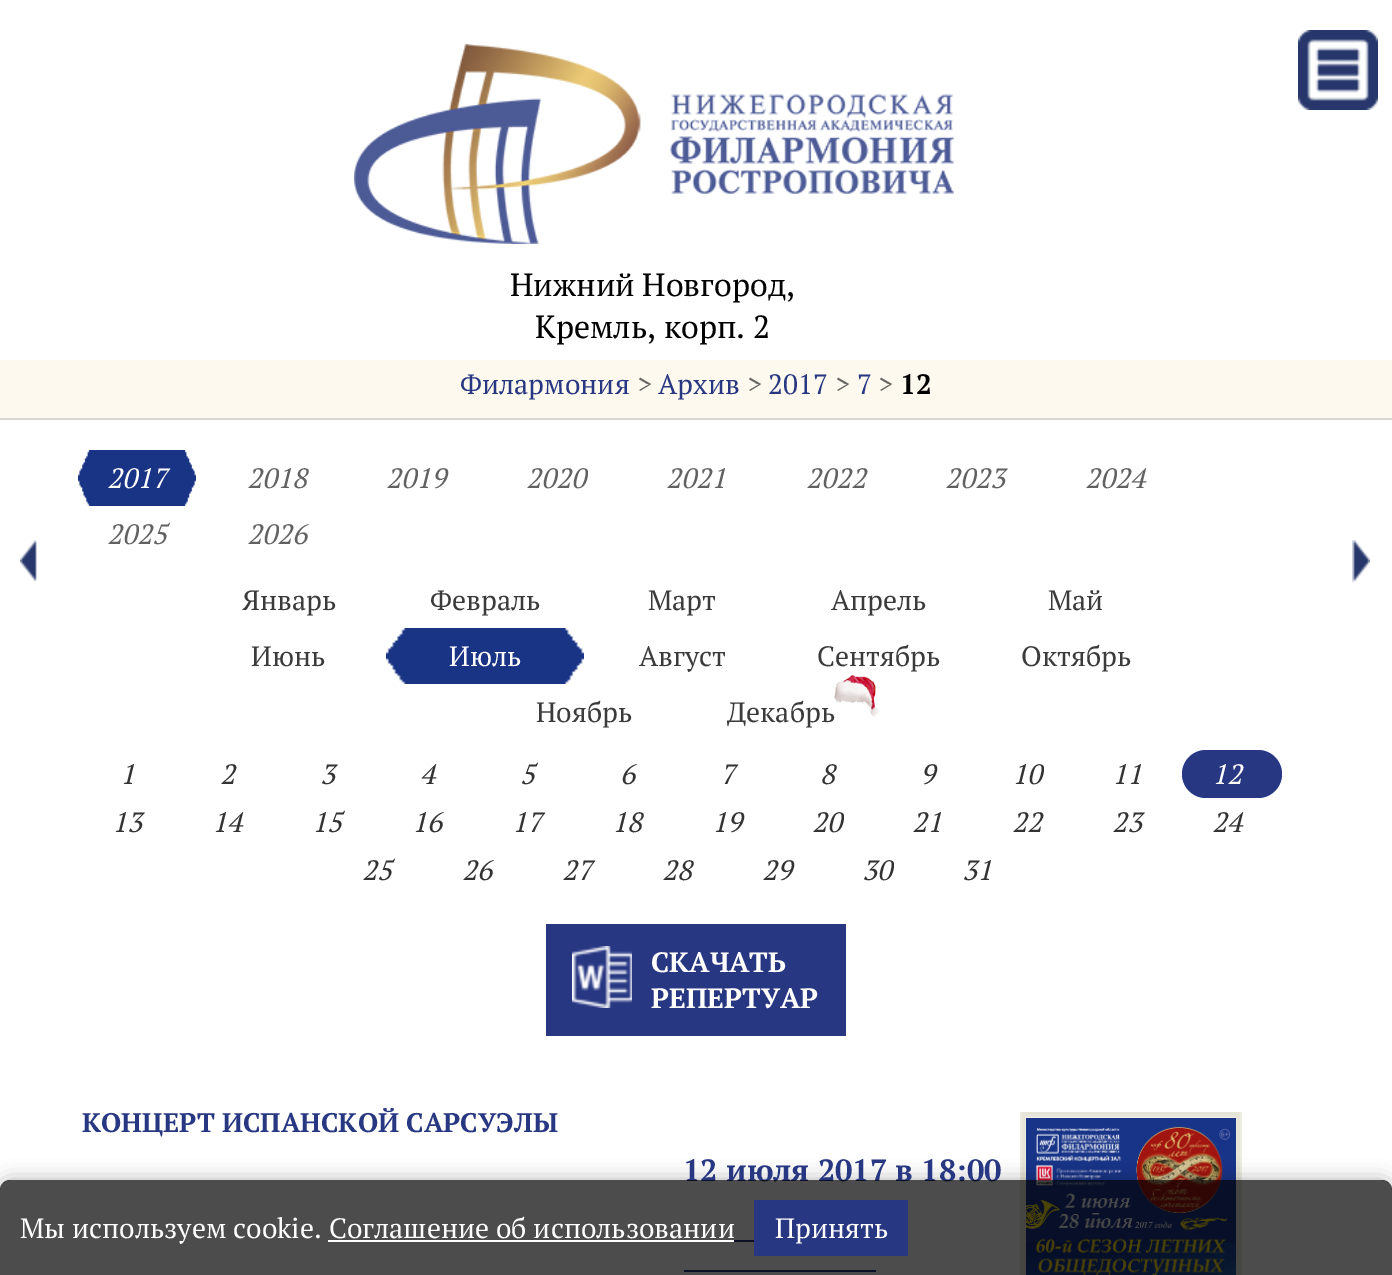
%!PS
<< /PageSize [1392 1275] /PageUsesTransparency true >> setpagedevice
/rgb { 3 { 255 div 3 1 roll } repeat setrgbcolor } def
/font { [ exch dup neg 0 0 3 -1 roll 0 0 ] selectfont } def
/text { moveto show } def
/alpha { dup .setfillconstantalpha .setstrokeconstantalpha } def
/roundrect { 5 dict begin { /r /h /w /y /x } { exch def } forall
  x r add y moveto x w add y 2 copy h add r arct x w add y h add x 1 index r arct
  x y h add x y r arct x y 2 copy exch w add exch r arct closepath end } def
/shadow { 12 dict begin { /a /b /q /h /w /y /x } { exch def } forall gsave /was 0 def
  9 -2 -9 { dup b mul 4 div /e exch def 1 sub .425 mul 2.718 exch exp 1 add a .99 .min exch div /now exch def
    1 1 now sub 1 was sub div sub alpha /was now def
    w h .min e 2 mul add 0 gt { x e sub y e sub w e 2 mul add h e 2 mul add
      q e add b .6 mul add w h .min 2 div e add .min 0 .max roundrect fill } if } for grestore end } def
/picture { 5 dict begin { /h /w /y /x /name } { exch def } forall
  gsave x y translate w h scale
  w h 8 [w 0 0 h 0 0] name (r) file false 3 colorimage grestore end } def
0 .pushpdf14devicefilter
0 1275 translate 1 -1 scale
4 setmiterlimit
255 255 255 rgb
0 0 1392 1275 rectfill
(img_01.rgb) 1298 30 80 80 picture
(img_02.rgb) 354 44 600 200 picture
253 249 239 rgb
0 360 1392 58 rectfill
218 215 209 rgb
0 418 1392 2 rectfill
(img_03.rgb) 20 540 17 42 picture
(img_04.rgb) 78 450 118 56 picture
(img_05.rgb) 386 628 198 56 picture
(img_06.rgb) 834 675 44 42 picture
40 55 130 rgb
1182 750 100 48 24 roundrect fill
(img_07.rgb) 1352 540 18 42 picture
546 924 300 112 rectfill
(img_08.rgb) 572 946 60 62 picture
734 1240 20 2 rectfill
684 1270 192 2 rectfill
(img_09.rgb) 1020 1112 222 163 picture
(img_10.rgb) 1026 1118 210 157 picture
gsave
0 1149 moveto 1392 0 rlineto 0 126 rlineto -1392 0 rlineto closepath 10 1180 moveto 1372 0 rlineto 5.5 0 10 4.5 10 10 rcurveto 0 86 rlineto -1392 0 rlineto 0 -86 rlineto 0 -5.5 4.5 -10 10 -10 rcurveto closepath eoclip newpath
0 0 0 rgb
0 1180 1392 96 10 10 0.3 shadow
grestore
/PTSerif-Regular 32 font
1 1 1 rgb
(Нижний Новгород,) 510 296 text
(Кремль, корп. 2) 535 338 text
/PTSerif-Regular 28 font
40 55 130 rgb
(Филармония) 460 394 text
103 102 98 rgb
(>) 637 394 text
40 55 130 rgb
(Архив) 658 394 text
103 102 98 rgb
(>) 747 394 text
40 55 130 rgb
(2017) 768 394 text
103 102 98 rgb
(>) 835 394 text
40 55 130 rgb
(7) 857 394 text
103 102 98 rgb
(>) 878 394 text
/PTSerif-Bold 28 font
1 1 1 rgb
(12) 900 394 text
/PTSerif-Italic 28 font
255 255 255 rgb
(2017) 107 488 text
97 97 97 rgb
(2018) 247 488 text
(2019) 386 488 text
(2020) 526 488 text
(2021) 666 488 text
(2022) 806 488 text
(2023) 945 488 text
(2024) 1085 488 text
(2025) 107 544 text
(2026) 247 544 text
/PTSerif-Regular 28 font
59 59 59 rgb
(Январь) 242 610 text
(Февраль) 430 610 text
(Март) 648 610 text
(Апрель) 831 610 text
(Май) 1048 610 text
(Июнь) 251 666 text
255 255 255 rgb
(Июль) 449 666 text
59 59 59 rgb
(Август) 639 666 text
(Сентябрь) 817 666 text
(Октябрь) 1021 666 text
(Ноябрь) 536 722 text
(Декабрь) 727 722 text
/PTSerif-Italic 28 font
51 51 51 rgb
(1) 120 784 text
(2) 220 784 text
(3) 320 784 text
(4) 420 784 text
(5) 520 784 text
(6) 620 784 text
(7) 720 784 text
(8) 820 784 text
(9) 920 784 text
(10) 1012 784 text
(11) 1112 784 text
255 255 255 rgb
(12) 1212 784 text
51 51 51 rgb
(13) 112 832 text
(14) 212 832 text
(15) 312 832 text
(16) 412 832 text
(17) 512 832 text
(18) 612 832 text
(19) 712 832 text
(20) 812 832 text
(21) 912 832 text
(22) 1012 832 text
(23) 1112 832 text
(24) 1212 832 text
(25) 362 880 text
(26) 462 880 text
(27) 562 880 text
(28) 662 880 text
(29) 762 880 text
(30) 862 880 text
(31) 962 880 text
/PTSerif-Bold 28 font
255 255 255 rgb
(СКАЧАТЬ) 651 972 text
(РЕПЕРТУАР) 651 1008 text
/PTSerif-Bold 26.9 font
40 55 130 rgb
(КОНЦЕРТ ИСПАНСКОЙ САРСУЭЛЫ) 82 1132 text
/PTSerif-Bold 30.75 font
(12 июля 2017 в 18:00) 683 1181 text
0.7 alpha
0 0 0 rgb
10 1180 moveto 1372 0 rlineto 5.5 0 10 4.5 10 10 rcurveto 0 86 rlineto -1392 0 rlineto 0 -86 rlineto 0 -5.5 4.5 -10 10 -10 rcurveto closepath fill
/PTSerif-Regular 28 font
1 alpha
255 255 255 rgb
(Мы используем cookie. Соглашение об использовании) 20 1238 text
328 1240 406 2 rectfill
40 55 130 rgb
754 1200 154 56 rectfill
255 255 255 rgb
(Принять) 775 1238 text
.poppdf14devicefilter showpage
